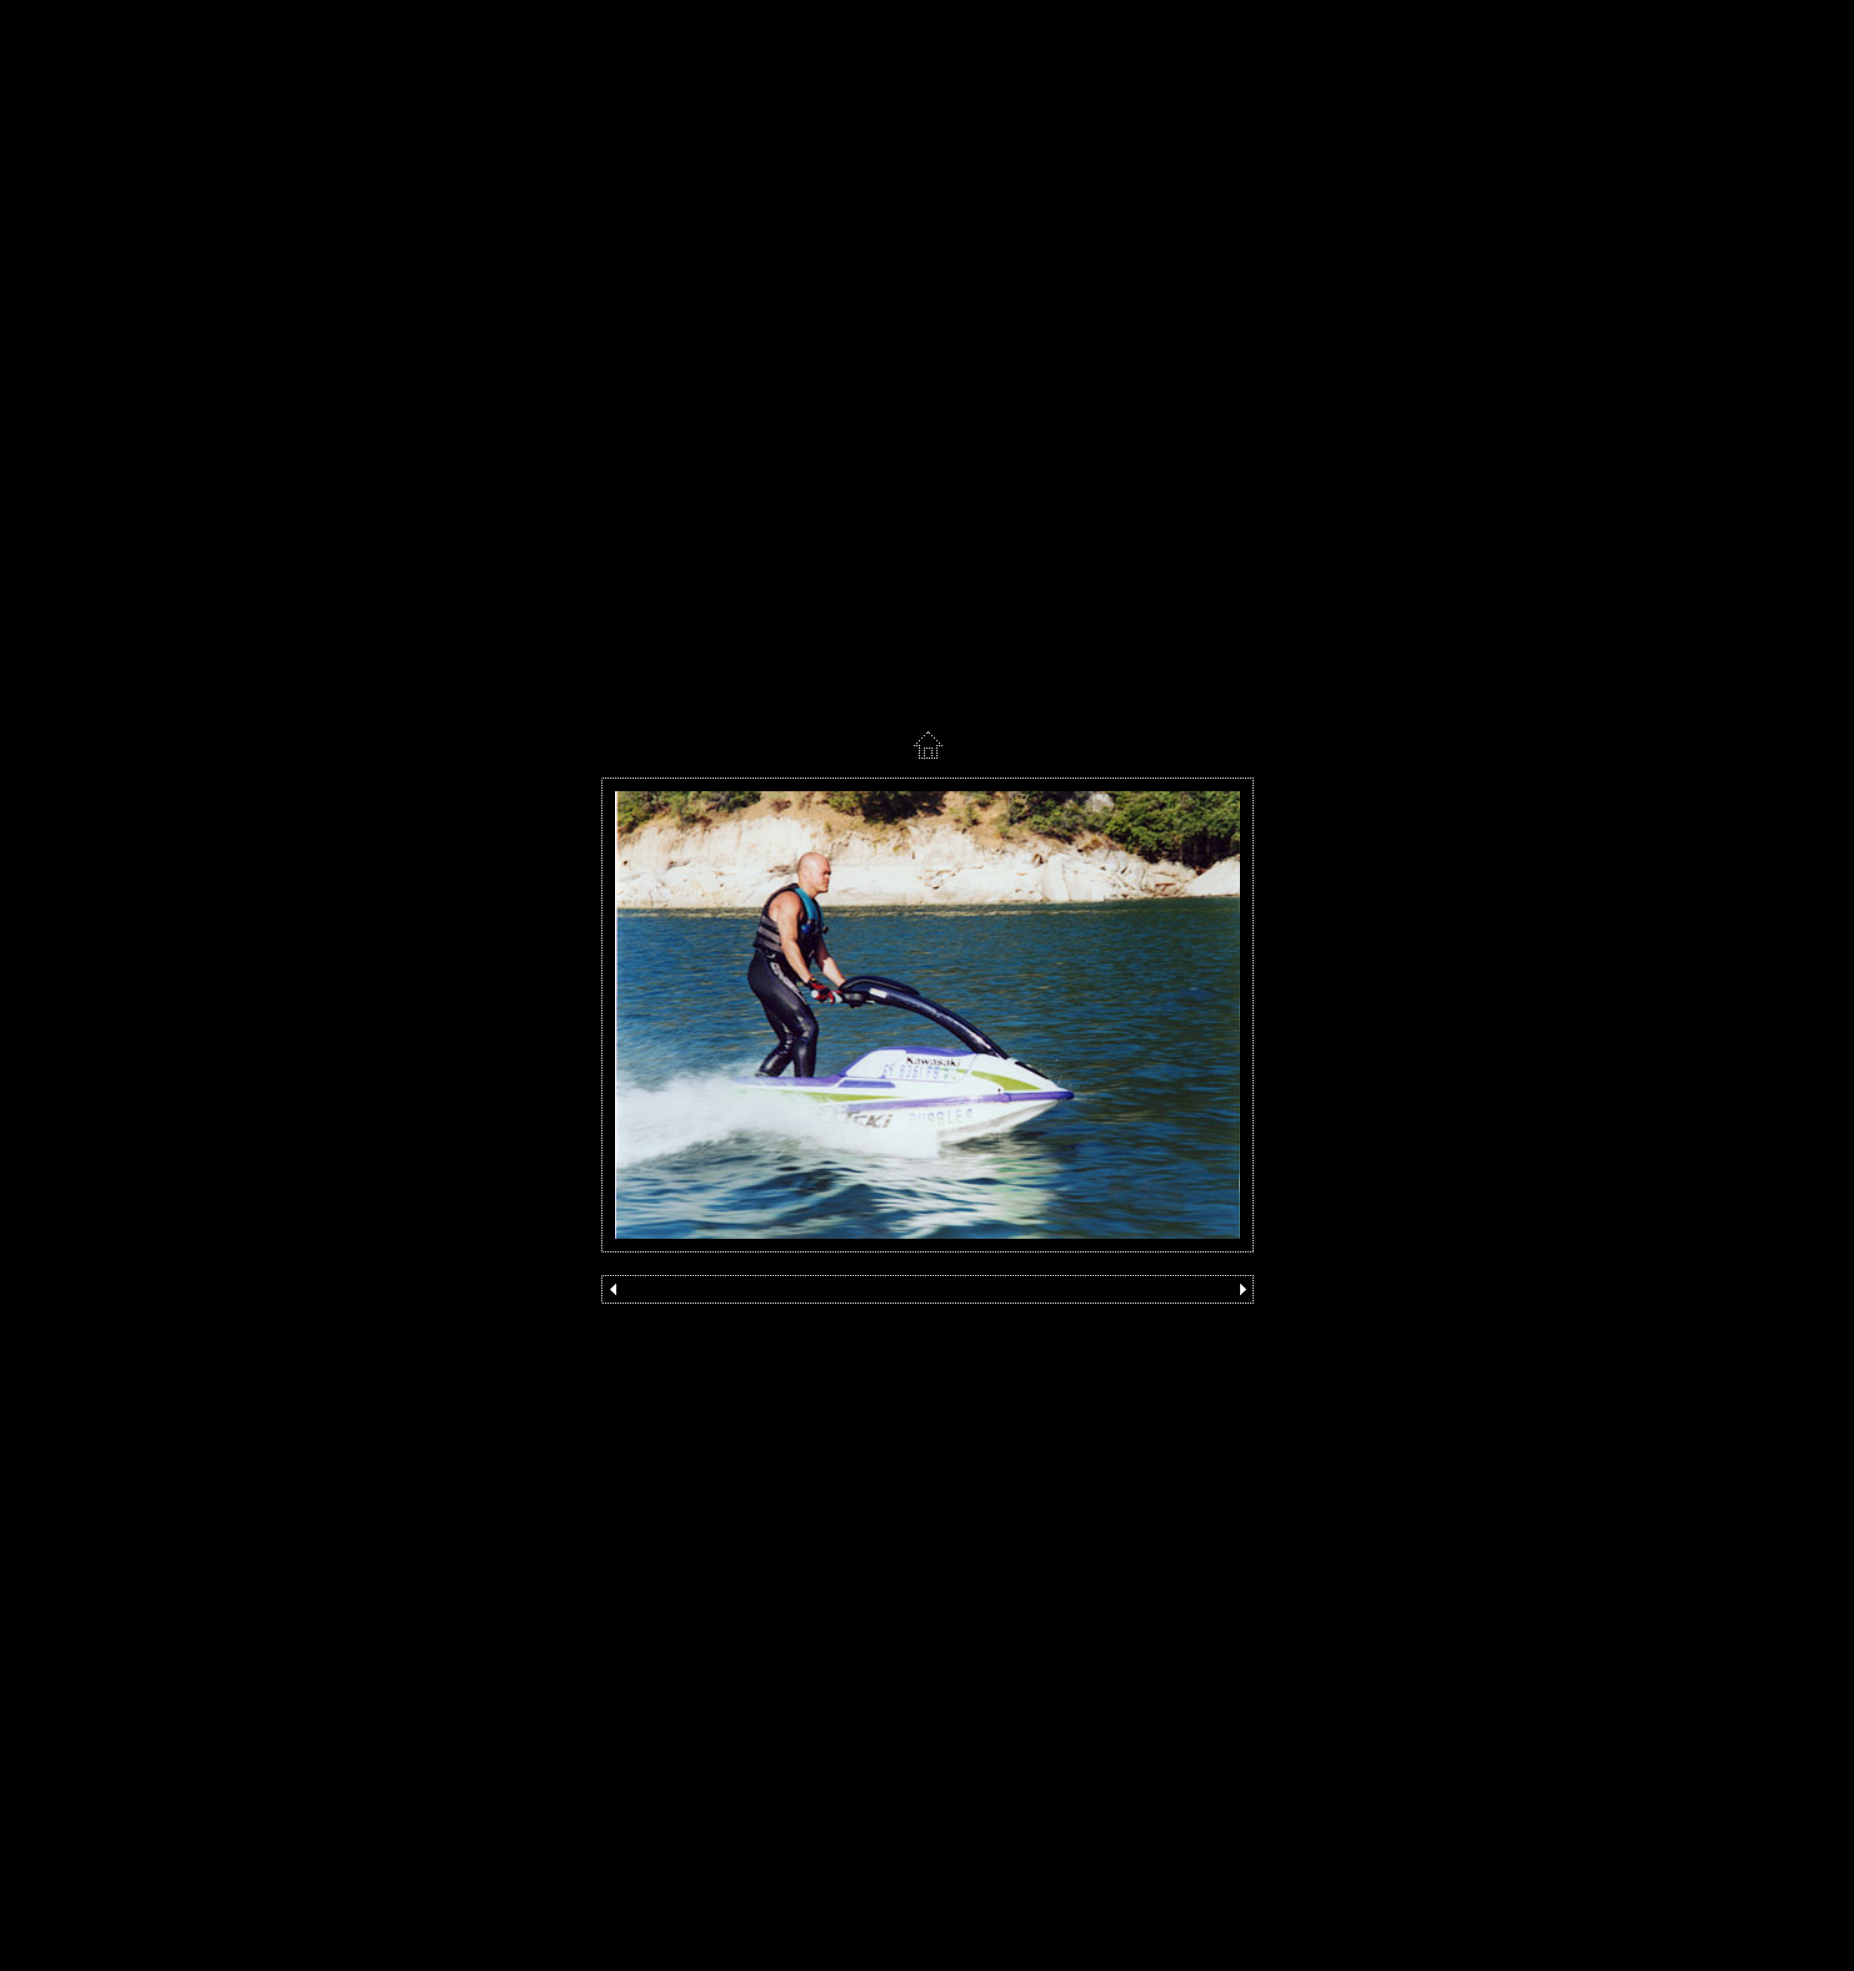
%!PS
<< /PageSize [1854 1971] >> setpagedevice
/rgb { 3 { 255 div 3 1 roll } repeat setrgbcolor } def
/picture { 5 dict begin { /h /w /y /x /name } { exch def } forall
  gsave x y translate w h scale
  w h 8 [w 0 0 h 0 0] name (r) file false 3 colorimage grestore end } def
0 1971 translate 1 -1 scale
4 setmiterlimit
0 0 0 rgb
0 0 1854 1971 rectfill
(img_01.rgb) 913 731 30 28 picture
(img_02.rgb) 601 777 653 2 picture
(img_03.rgb) 601 778 2 474 picture
(img_04.rgb) 615 791 625 448 picture
(img_05.rgb) 1252 778 2 474 picture
(img_06.rgb) 601 1251 653 2 picture
(img_07.rgb) 601 1275 653 2 picture
(img_08.rgb) 601 1276 2 27 picture
604 1276 649 1 rectfill
(img_09.rgb) 609 1283 8 13 picture
(img_10.rgb) 1239 1283 8 13 picture
(img_11.rgb) 1252 1276 2 27 picture
(img_12.rgb) 601 1302 653 2 picture
showpage
